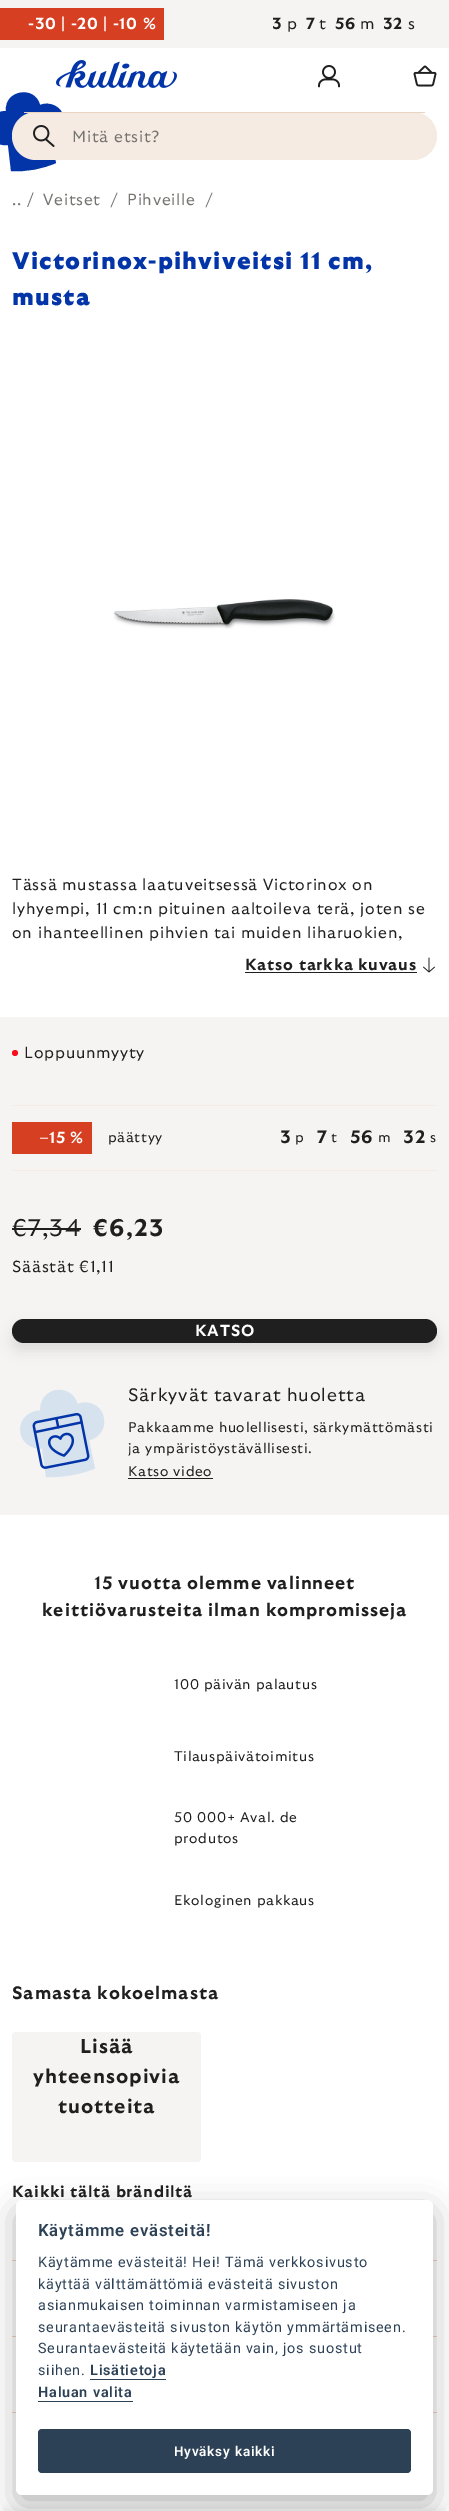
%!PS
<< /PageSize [449 2511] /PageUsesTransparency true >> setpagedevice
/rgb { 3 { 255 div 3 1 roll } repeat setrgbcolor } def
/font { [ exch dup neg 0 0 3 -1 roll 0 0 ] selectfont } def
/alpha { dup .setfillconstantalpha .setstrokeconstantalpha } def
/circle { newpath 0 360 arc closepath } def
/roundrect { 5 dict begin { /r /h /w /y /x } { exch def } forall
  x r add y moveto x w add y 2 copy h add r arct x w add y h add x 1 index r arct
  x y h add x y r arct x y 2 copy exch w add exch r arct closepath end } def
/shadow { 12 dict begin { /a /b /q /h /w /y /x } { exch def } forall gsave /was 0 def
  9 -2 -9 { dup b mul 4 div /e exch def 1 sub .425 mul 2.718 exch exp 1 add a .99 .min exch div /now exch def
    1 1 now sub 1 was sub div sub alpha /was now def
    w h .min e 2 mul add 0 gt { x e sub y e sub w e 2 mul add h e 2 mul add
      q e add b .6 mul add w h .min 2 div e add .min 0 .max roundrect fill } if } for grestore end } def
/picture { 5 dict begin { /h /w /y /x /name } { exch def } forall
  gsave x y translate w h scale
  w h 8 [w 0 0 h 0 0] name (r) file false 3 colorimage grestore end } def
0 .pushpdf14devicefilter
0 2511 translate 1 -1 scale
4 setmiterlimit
255 255 255 rgb
0 0 449 2511 rectfill
246 244 242 rgb
0 0 449 48 rectfill
214 63 34 rgb
0 8 164 32 rectfill
(img_01.rgb) 56 60 121 28 picture
(img_02.rgb) 318 65 22 23 picture
(img_03.rgb) 413 65 24 22 picture
3 53 168 rgb
64 118 moveto -2 -12 -15 -17 -24 -13 rcurveto -5 -20 -36 -15 -34 6 rcurveto -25 0 -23 37 2 34 rcurveto 3 26 rlineto 16 1 31 -2 45 -8 rcurveto -5 -25 rlineto 9 -2 15 -11 13 -20 rcurveto closepath fill
245 235 226 rgb
12 112 425 48 24 roundrect fill
(img_04.rgb) 33 125 22 22 picture
235 211 194 rgb
24 112 401 1 rectfill
(img_05.rgb) 110 192 8 16 picture
(img_05.rgb) 205 192 8 16 picture
(img_06.rgb) 113 599 222 30 picture
31 31 31 rgb
245 972 172 1 rectfill
(img_07.rgb) 423 957 12 16 picture
246 244 242 rgb
0 1017 449 498 rectfill
252 13 28 rgb
15 1053 3 circle fill
245 235 226 rgb
12 1105 425 1 rectfill
12 1170 425 1 rectfill
214 63 34 rgb
12 1122 80 32 rectfill
31 31 31 rgb
12 1228 69 2 rectfill
204 204 204 rgb
12 1327 425 24 12 6.5 0.6 shadow
31 31 31 rgb
12 1319 425 24 12 roundrect fill
(img_08.rgb) 20 1389 85 89 picture
128 1478 85 1 rectfill
246 244 242 rgb
12 2032 189 130 4 roundrect fill
235 211 194 rgb
12 2260 425 1 rectfill
12 2336 425 1 rectfill
12 2412 425 1 rectfill
23 23 23 rgb
0 2509 449 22 8 4 0.08 shadow
2 2 3 rgb
16 2210 417 295 6 15 0.28 shadow
255 255 255 rgb
16 2200 417 295 6 roundrect fill
45 65 86 rgb
90 2379 76 1 rectfill
38 2401 95 1 rectfill
38 2429 373 44 4 roundrect fill
/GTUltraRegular-ExtraBold 16 font
255 255 255 rgb
28 29 moveto 0.8 0 (-30 | -20 | -10 %) ashow
31 31 31 rgb
272 29 moveto 0.8 0 (3) ashow
/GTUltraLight-ExtraLight 16 font
287 29 moveto 0.8 0 (p) ashow
/GTUltraRegular-ExtraBold 16 font
306 29 moveto 0.8 0 (7) ashow
/GTUltraLight-ExtraLight 16 font
319 29 moveto 0.8 0 (t) ashow
/GTUltraRegular-ExtraBold 16 font
335 29 moveto 0.8 0 (56) ashow
/GTUltraLight-ExtraLight 16 font
360 29 moveto 0.8 0 (m) ashow
/GTUltraRegular-ExtraBold 16 font
383 29 moveto 0.8 0 (32) ashow
/GTUltraLight-ExtraLight 16 font
408 29 moveto 0.8 0 (s) ashow
118 116 113 rgb
72 142 moveto 0.8 0 (Mitä etsit?) ashow
12 205 moveto 0.8 0 (.. /) ashow
43 205 moveto 0.8 0 (Veitset) ashow
127 205 moveto 0.8 0 (Pihveille) ashow
/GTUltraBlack-ExtraBold 24 font
3 53 168 rgb
12 269 moveto 1.2 0 (Victorinox-pihviveitsi 11 cm,) ashow
12 305 moveto 1.2 0 (musta) ashow
/GTUltraLight-ExtraLight 16 font
31 31 31 rgb
12 890 moveto 0.8 0 (Tässä mustassa laatuveitsessä Victorinox on) ashow
12 914 moveto 0.8 0 (lyhyempi, 11 cm:n pituinen aaltoileva terä, joten se) ashow
12 938 moveto 0.8 0 (on ihanteellinen pihvien tai muiden liharuokien,) ashow
/GTUltraRegular-ExtraBold 16 font
245 970 moveto 0.8 0 (Katso tarkka kuvaus) ashow
/GTUltraLight-ExtraLight 16 font
24 1058 moveto 0.8 0 (Loppuunmyyty) ashow
/GTUltraRegular-ExtraBold 16 font
255 255 255 rgb
40 1143 moveto 0.8 0 (–15 %) ashow
/GTUltraLight-ExtraLight 14 font
31 31 31 rgb
108 1142 moveto 0.7 0 (päättyy) ashow
/GTUltraRegular-ExtraBold 18 font
280 1143 moveto 0.9 0 (3) ashow
/GTUltraLight-ExtraLight 14 font
295 1142 moveto 0.7 0 (p) ashow
/GTUltraRegular-ExtraBold 18 font
317 1143 moveto 0.9 0 (7) ashow
/GTUltraLight-ExtraLight 14 font
331 1142 moveto 0.7 0 (t) ashow
/GTUltraRegular-ExtraBold 18 font
350 1143 moveto 0.9 0 (56) ashow
/GTUltraLight-ExtraLight 14 font
378 1142 moveto 0.7 0 (m) ashow
/GTUltraRegular-ExtraBold 18 font
403 1143 moveto 0.9 0 (32) ashow
/GTUltraLight-ExtraLight 14 font
430 1142 moveto 0.7 0 (s) ashow
/GTUltraLight-ExtraLight 24 font
12 1236 moveto 1.2 0 (€7,34) ashow
/GTUltraRegular-ExtraBold 24 font
93 1236 moveto 1.2 0 (€6,23) ashow
/GTUltraLight-ExtraLight 16 font
12 1272 moveto 0.8 0 (Säästät €1,11) ashow
/GTUltraRegular-ExtraBold 16 font
255 255 255 rgb
195 1336 moveto 0.8 0 (KATSO) ashow
/GTUltraLight-ExtraLight 18 font
31 31 31 rgb
128 1401 moveto 0.9 0 (Särkyvät tavarat huoletta) ashow
/GTUltraLight-ExtraLight 14 font
128 1432 moveto 0.7 0 (Pakkaamme huolellisesti, särkymättömästi) ashow
128 1453 moveto 0.7 0 (ja ympäristöystävällisesti.) ashow
128 1476 moveto 0.7 0 (Katso video) ashow
/GTUltraRegular-ExtraBold 18 font
94 1589 moveto 0.9 0 (15 vuotta olemme valinneet) ashow
42 1616 moveto 0.9 0 (keittiövarusteita ilman kompromisseja) ashow
/GTUltraLight-ExtraLight 14 font
174 1689 moveto 0.7 0 (100 päivän palautus) ashow
174 1761 moveto 0.7 0 (Tilauspäivätoimitus) ashow
174 1822 moveto 0.7 0 (50 000+ Aval. de) ashow
174 1843 moveto 0.7 0 (produtos) ashow
174 1905 moveto 0.7 0 (Ekologinen pakkaus) ashow
/GTUltraRegular-ExtraBold 18 font
12 1999 moveto 0.9 0 (Samasta kokoelmasta) ashow
/GTUltraRegular-ExtraBold 20 font
80 2053 moveto 1 0 (Lisää) ashow
33 2083 moveto 1 0 (yhteensopivia) ashow
58 2113 moveto 1 0 (tuotteita) ashow
/GTUltraRegular-ExtraBold 16 font
12 2197 moveto 0.8 0 (Kaikki tältä brändiltä) ashow
/Roboto-SemiBold 16.75 font
45 65 86 rgb
38 2236 moveto 0.8 0 (Käytämme evästeitä!) ashow
/Roboto-Regular 14.4 font
38 2267 moveto 0.8 0 (Käytämme evästeitä! Hei! Tämä verkkosivusto) ashow
38 2289 moveto 0.8 0 (käyttää välttämättömiä evästeitä sivuston) ashow
38 2310 moveto 0.8 0 (asianmukaisen toiminnan varmistamiseen ja) ashow
38 2332 moveto 0.8 0 (seurantaevästeitä sivuston käytön ymmärtämiseen.) ashow
38 2353 moveto 0.8 0 (Seurantaevästeitä käytetään vain, jos suostut) ashow
38 2375 moveto 0.8 0 (siihen.) ashow
/Roboto-SemiBold 14.4 font
90 2375 moveto 0.8 0 (Lisätietoja) ashow
38 2397 moveto 0.8 0 (Haluan valita) ashow
/Roboto-SemiBold 13.5 font
255 255 255 rgb
174 2456 moveto 0.8 0 (Hyväksy kaikki) ashow
.poppdf14devicefilter showpage
